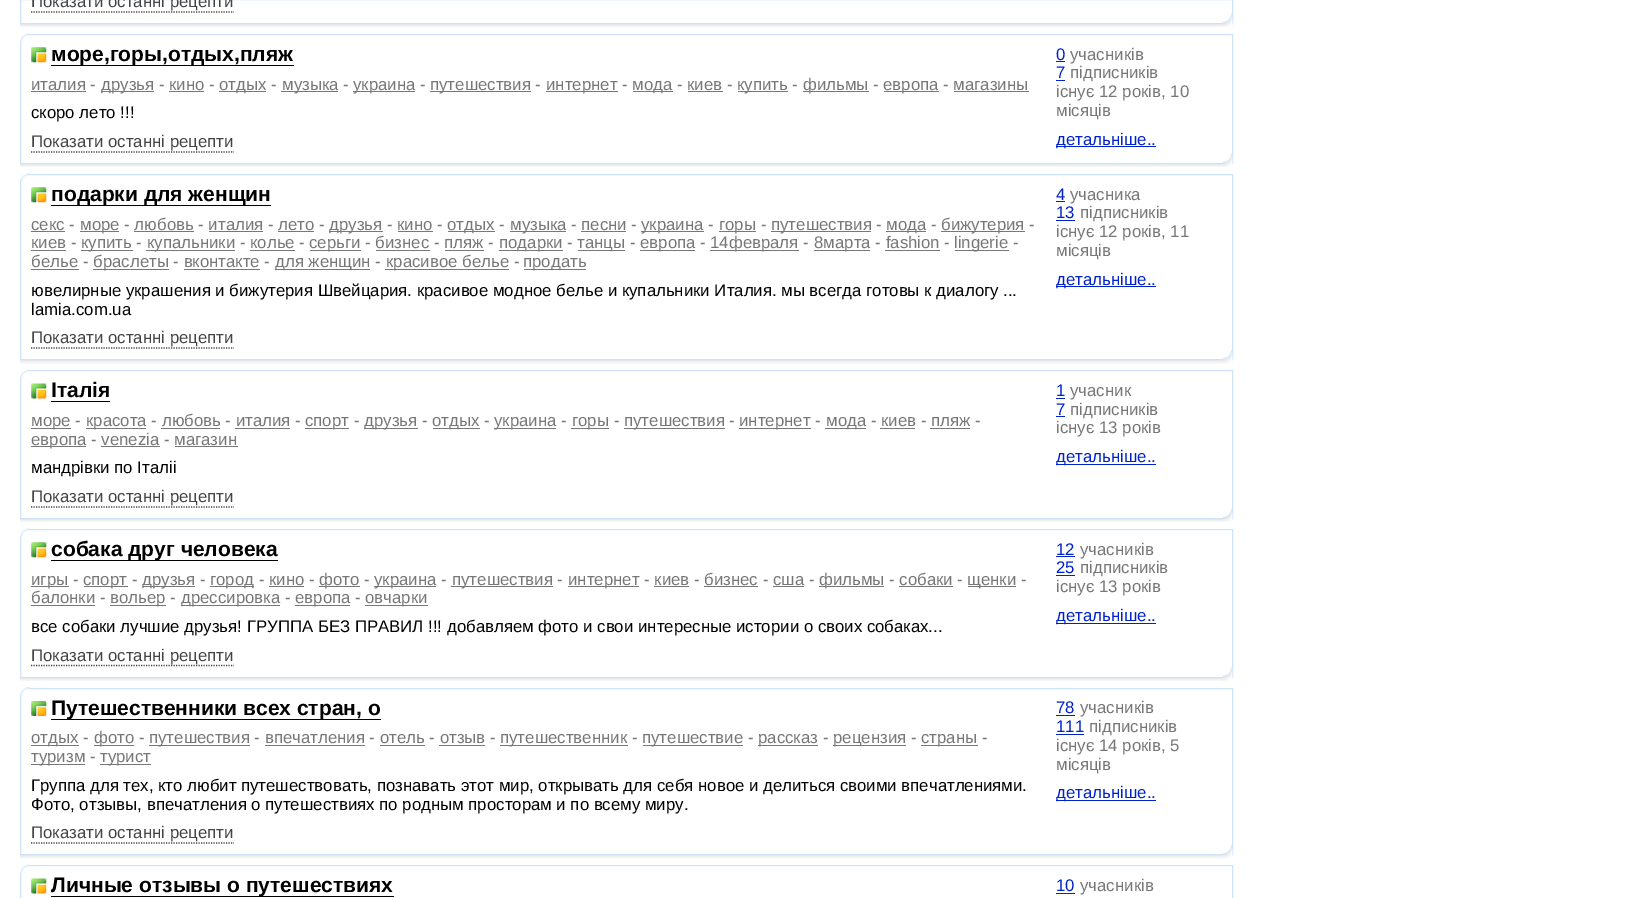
%!PS
<< /PageSize [1649 898] >> setpagedevice
/rgb { 3 { 255 div 3 1 roll } repeat setrgbcolor } def
/font { [ exch dup neg 0 0 3 -1 roll 0 0 ] selectfont } def
/text { moveto show } def
/picture { 5 dict begin { /h /w /y /x /name } { exch def } forall
  gsave x y translate w h scale
  w h 8 [w 0 0 h 0 0] name (r) file false 3 colorimage grestore end } def
0 898 translate 1 -1 scale
4 setmiterlimit
255 255 255 rgb
0 0 1649 898 rectfill
(img_01.rgb) 20 24 1213 3 picture
206 227 247 rgb
20.5 -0.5 1212 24 rectstroke
68 68 68 rgb
1.2 setlinewidth
[1.25 1.25] 0 setdash
31 12 moveto 203 0 rlineto stroke
(img_02.rgb) 1222 13 11 14 picture
(img_01.rgb) 20 164 1213 3 picture
206 227 247 rgb
1 setlinewidth
[] 0 setdash
20.5 34.5 1212 129 rectstroke
(img_03.rgb) 20 33 10 11 picture
0 0 0 rgb
51 65 243 1 rectfill
(img_04.rgb) 31 47 16 16 picture
0 34 204 rgb
1056 61 9 1 rectfill
1056 80 9 1 rectfill
1056 146 100 1 rectfill
119 119 119 rgb
31 91 55 1 rectfill
101 91 53 1 rectfill
219 91 47 1 rectfill
281 91 57 1 rectfill
353 91 62 1 rectfill
430 91 101 1 rectfill
546 91 72 1 rectfill
633 91 40 1 rectfill
738 91 50 1 rectfill
803 91 66 1 rectfill
884 91 55 1 rectfill
169 91 35 1 rectfill
688 91 35 1 rectfill
954 91 75 1 rectfill
68 68 68 rgb
1.2 setlinewidth
[1.25 1.25] 0 setdash
31 152 moveto 203 0 rlineto stroke
(img_02.rgb) 1222 153 11 14 picture
(img_05.rgb) 20 360 1213 4 picture
206 227 247 rgb
1 setlinewidth
[] 0 setdash
20.5 174.5 1212 185 rectstroke
(img_03.rgb) 20 173 10 11 picture
0 0 0 rgb
51 205 220 1 rectfill
(img_04.rgb) 31 187 16 16 picture
0 34 204 rgb
1056 201 9 1 rectfill
1056 220 19 1 rectfill
1056 286 100 1 rectfill
119 119 119 rgb
31 231 34 1 rectfill
80 231 39 1 rectfill
329 231 54 1 rectfill
448 231 47 1 rectfill
510 231 56 1 rectfill
641 231 63 1 rectfill
719 231 37 1 rectfill
771 231 100 1 rectfill
886 231 40 1 rectfill
941 231 84 1 rectfill
134 231 60 1 rectfill
209 231 54 1 rectfill
278 231 36 1 rectfill
398 231 35 1 rectfill
581 231 45 1 rectfill
31 250 35 1 rectfill
81 250 52 1 rectfill
146 250 89 1 rectfill
310 250 51 1 rectfill
499 250 64 1 rectfill
578 250 47 1 rectfill
640 250 55 1 rectfill
710 250 89 1 rectfill
814 250 56 1 rectfill
955 250 54 1 rectfill
250 250 45 1 rectfill
376 250 54 1 rectfill
445 250 39 1 rectfill
885 250 55 1 rectfill
31 269 48 1 rectfill
93 269 76 1 rectfill
275 269 95 1 rectfill
385 269 124 1 rectfill
524 269 62 1 rectfill
184 269 76 1 rectfill
68 68 68 rgb
1.2 setlinewidth
[1.25 1.25] 0 setdash
31 348 moveto 203 0 rlineto stroke
(img_06.rgb) 1222 349 11 15 picture
(img_01.rgb) 20 519 1213 3 picture
206 227 247 rgb
1 setlinewidth
[] 0 setdash
20.5 370.5 1212 148 rectstroke
(img_07.rgb) 20 369 10 11 picture
0 0 0 rgb
51 401 59 1 rectfill
(img_08.rgb) 31 383 16 16 picture
0 34 204 rgb
1056 398 9 1 rectfill
1056 416 9 1 rectfill
1056 464 100 1 rectfill
119 119 119 rgb
31 428 40 1 rectfill
86 428 60 1 rectfill
305 428 44 1 rectfill
364 428 54 1 rectfill
433 428 47 1 rectfill
494 428 62 1 rectfill
571 428 38 1 rectfill
624 428 101 1 rectfill
739 428 72 1 rectfill
825 428 41 1 rectfill
161 428 59 1 rectfill
235 428 55 1 rectfill
880 428 35 1 rectfill
930 428 40 1 rectfill
31 446 55 1 rectfill
101 446 59 1 rectfill
175 446 63 1 rectfill
68 68 68 rgb
1.2 setlinewidth
[1.25 1.25] 0 setdash
31 507 moveto 203 0 rlineto stroke
(img_02.rgb) 1222 508 11 14 picture
(img_09.rgb) 20 678 1213 3 picture
206 227 247 rgb
1 setlinewidth
[] 0 setdash
20.5 529.5 1212 148 rectstroke
(img_03.rgb) 20 528 10 11 picture
0 0 0 rgb
51 560 227 1 rectfill
(img_04.rgb) 31 542 16 16 picture
0 34 204 rgb
1056 556 19 1 rectfill
1056 575 19 1 rectfill
1056 623 100 1 rectfill
119 119 119 rgb
31 586 38 1 rectfill
84 586 44 1 rectfill
143 586 52 1 rectfill
210 586 44 1 rectfill
319 586 41 1 rectfill
374 586 62 1 rectfill
451 586 102 1 rectfill
568 586 71 1 rectfill
819 586 65 1 rectfill
968 586 48 1 rectfill
269 586 35 1 rectfill
654 586 35 1 rectfill
704 586 54 1 rectfill
773 586 31 1 rectfill
899 586 54 1 rectfill
31 605 64 1 rectfill
110 605 56 1 rectfill
181 605 99 1 rectfill
295 605 55 1 rectfill
365 605 63 1 rectfill
68 68 68 rgb
1.2 setlinewidth
[1.25 1.25] 0 setdash
31 665.5 moveto 203 0 rlineto stroke
(img_10.rgb) 1222 667 11 15 picture
(img_05.rgb) 20 855 1213 4 picture
206 227 247 rgb
1 setlinewidth
[] 0 setdash
20.5 688.5 1212 166 rectstroke
(img_11.rgb) 20 687 10 11 picture
0 0 0 rgb
51 719 330 1 rectfill
(img_12.rgb) 31 701 16 15 picture
0 34 204 rgb
1056 715 19 1 rectfill
1056 734 28 1 rectfill
1056 800 100 1 rectfill
119 119 119 rgb
31 745 48 1 rectfill
94 745 40 1 rectfill
149 745 101 1 rectfill
500 745 128 1 rectfill
643 745 100 1 rectfill
758 745 60 1 rectfill
833 745 73 1 rectfill
921 745 57 1 rectfill
265 745 100 1 rectfill
380 745 45 1 rectfill
439 745 46 1 rectfill
31 764 54 1 rectfill
100 764 51 1 rectfill
68 68 68 rgb
1.2 setlinewidth
[1.25 1.25] 0 setdash
31 843 moveto 203 0 rlineto stroke
(img_06.rgb) 1222 844 11 15 picture
206 227 247 rgb
1 setlinewidth
[] 0 setdash
20.5 865.5 1212 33 rectstroke
(img_07.rgb) 20 864 10 11 picture
0 0 0 rgb
51 896 343 1 rectfill
(img_08.rgb) 31 878 16 16 picture
0 34 204 rgb
1056 893 19 1 rectfill
/LiberationSans-Regular 16.8 font
68 68 68 rgb
(Показати останні рецепти) 31 7 text
/LiberationSans-Bold 21 font
0 0 0 rgb
(море,горы,отдых,пляж) 51 61 text
/LiberationSans-Regular 16.8 font
0 34 204 rgb
(0) 1056 60 text
119 119 119 rgb
(учасників) 1070 60 text
0 34 204 rgb
(7) 1056 78 text
119 119 119 rgb
(підписників) 1070 78 text
(існує 12 років, 10) 1056 97 text
(місяців) 1056 116 text
0 34 204 rgb
(детальніше..) 1056 145 text
119 119 119 rgb
(италия -) 31 90 text
(друзья - кино -) 101 90 text
(отдых -) 219 90 text
(музыка -) 282 90 text
(украина -) 353 90 text
(путешествия -) 430 90 text
(интернет -) 546 90 text
(мода - киев -) 632 90 text
(купить -) 737 90 text
(фильмы -) 803 90 text
(европа - магазины) 883 90 text
0 0 0 rgb
(скоро лето !!!) 31 118 text
68 68 68 rgb
(Показати останні рецепти) 31 147 text
/LiberationSans-Bold 21 font
0 0 0 rgb
(подарки для женщин) 51 201 text
/LiberationSans-Regular 16.8 font
0 34 204 rgb
(4) 1056 200 text
119 119 119 rgb
(учасника) 1070 200 text
0 34 204 rgb
(13) 1056 218 text
119 119 119 rgb
(підписників) 1080 218 text
(існує 12 років, 11) 1056 237 text
(місяців) 1056 256 text
0 34 204 rgb
(детальніше..) 1056 285 text
119 119 119 rgb
(секс -) 31 230 text
(море - любовь - италия - лето -) 80 230 text
(друзья - кино -) 329 230 text
(отдых -) 447 230 text
(музыка - песни -) 510 230 text
(украина -) 641 230 text
(горы -) 719 230 text
(путешествия -) 771 230 text
(мода -) 886 230 text
(бижутерия -) 941 230 text
(киев -) 31 248 text
(купить -) 81 248 text
(купальники - колье -) 147 248 text
(серьги - бизнес - пляж -) 309 248 text
(подарки -) 499 248 text
(танцы -) 577 248 text
(европа -) 640 248 text
(14февраля -) 710 248 text
(8марта - fashion -) 814 248 text
(lingerie -) 954 248 text
(белье -) 31 267 text
(браслеты - вконтакте -) 93 267 text
(для женщин -) 275 267 text
(красивое белье -) 386 267 text
(продать) 523 267 text
0 0 0 rgb
(ювелирные украшения и бижутерия Швейцария. красивое модное белье и купальники Италия. мы всегда готовы к диалогу ...) 31 296 text
(lamia.com.ua) 31 315 text
68 68 68 rgb
(Показати останні рецепти) 31 343 text
/LiberationSans-Bold 21 font
0 0 0 rgb
(Iталiя) 51 397 text
/LiberationSans-Regular 16.8 font
0 34 204 rgb
(1) 1056 396 text
119 119 119 rgb
(учасник) 1070 396 text
0 34 204 rgb
(7) 1056 415 text
119 119 119 rgb
(підписників) 1070 415 text
(існує 13 років) 1056 433 text
0 34 204 rgb
(детальніше..) 1056 462 text
119 119 119 rgb
(море -) 31 426 text
(красота - любовь - италия -) 86 426 text
(спорт -) 305 426 text
(друзья -) 364 426 text
(отдых -) 432 426 text
(украина -) 494 426 text
(горы -) 572 426 text
(путешествия -) 624 426 text
(интернет -) 739 426 text
(мода - киев - пляж -) 826 426 text
(европа - venezia - магазин) 31 445 text
0 0 0 rgb
(мандрiвки по Iталii) 31 473 text
68 68 68 rgb
(Показати останні рецепти) 31 502 text
/LiberationSans-Bold 21 font
0 0 0 rgb
(собака друг человека) 51 556 text
/LiberationSans-Regular 16.8 font
0 34 204 rgb
(12) 1056 555 text
119 119 119 rgb
(учасників) 1080 555 text
0 34 204 rgb
(25) 1056 573 text
119 119 119 rgb
(підписників) 1080 573 text
(існує 13 років) 1056 592 text
0 34 204 rgb
(детальніше..) 1056 621 text
119 119 119 rgb
(игры -) 31 585 text
(спорт -) 83 585 text
(друзья -) 142 585 text
(город - кино -) 210 585 text
(фото -) 319 585 text
(украина -) 374 585 text
(путешествия -) 452 585 text
(интернет - киев - бизнес - сша -) 568 585 text
(фильмы - собаки -) 819 585 text
(щенки -) 967 585 text
(балонки -) 31 603 text
(вольер -) 110 603 text
(дрессировка -) 181 603 text
(европа -) 295 603 text
(овчарки) 365 603 text
0 0 0 rgb
(все собаки лучшие друзья! ГРУППА БЕЗ ПРАВИЛ !!! добавляем фото и свои интересные истории о своих собаках...) 31 632 text
68 68 68 rgb
(Показати останні рецепти) 31 661 text
/LiberationSans-Bold 21 font
0 0 0 rgb
(Путешественники всех стран, о) 51 715 text
/LiberationSans-Regular 16.8 font
0 34 204 rgb
(78) 1056 713 text
119 119 119 rgb
(учасників) 1080 713 text
0 34 204 rgb
(111) 1056 732 text
119 119 119 rgb
(підписників) 1089 732 text
(існує 14 років, 5) 1056 751 text
(місяців) 1056 770 text
0 34 204 rgb
(детальніше..) 1056 798 text
119 119 119 rgb
(отдых -) 31 743 text
(фото -) 94 743 text
(путешествия - впечатления - отель - отзыв -) 149 743 text
(путешественник -) 500 743 text
(путешествие -) 642 743 text
(рассказ -) 758 743 text
(рецензия -) 833 743 text
(страны -) 921 743 text
(туризм -) 31 762 text
(турист) 100 762 text
0 0 0 rgb
(Группа для тех, кто любит путешествовать, познавать этот мир, открывать для себя новое и делиться своими впечатлениями.) 31 791 text
(Фото, отзывы, впечатления о путешествиях по родным просторам и по всему миру.) 31 810 text
68 68 68 rgb
(Показати останні рецепти) 31 838 text
/LiberationSans-Bold 21 font
0 0 0 rgb
(Личные отзывы о путешествиях) 51 892 text
/LiberationSans-Regular 16.8 font
0 34 204 rgb
(10) 1056 891 text
119 119 119 rgb
(учасників) 1080 891 text
showpage
